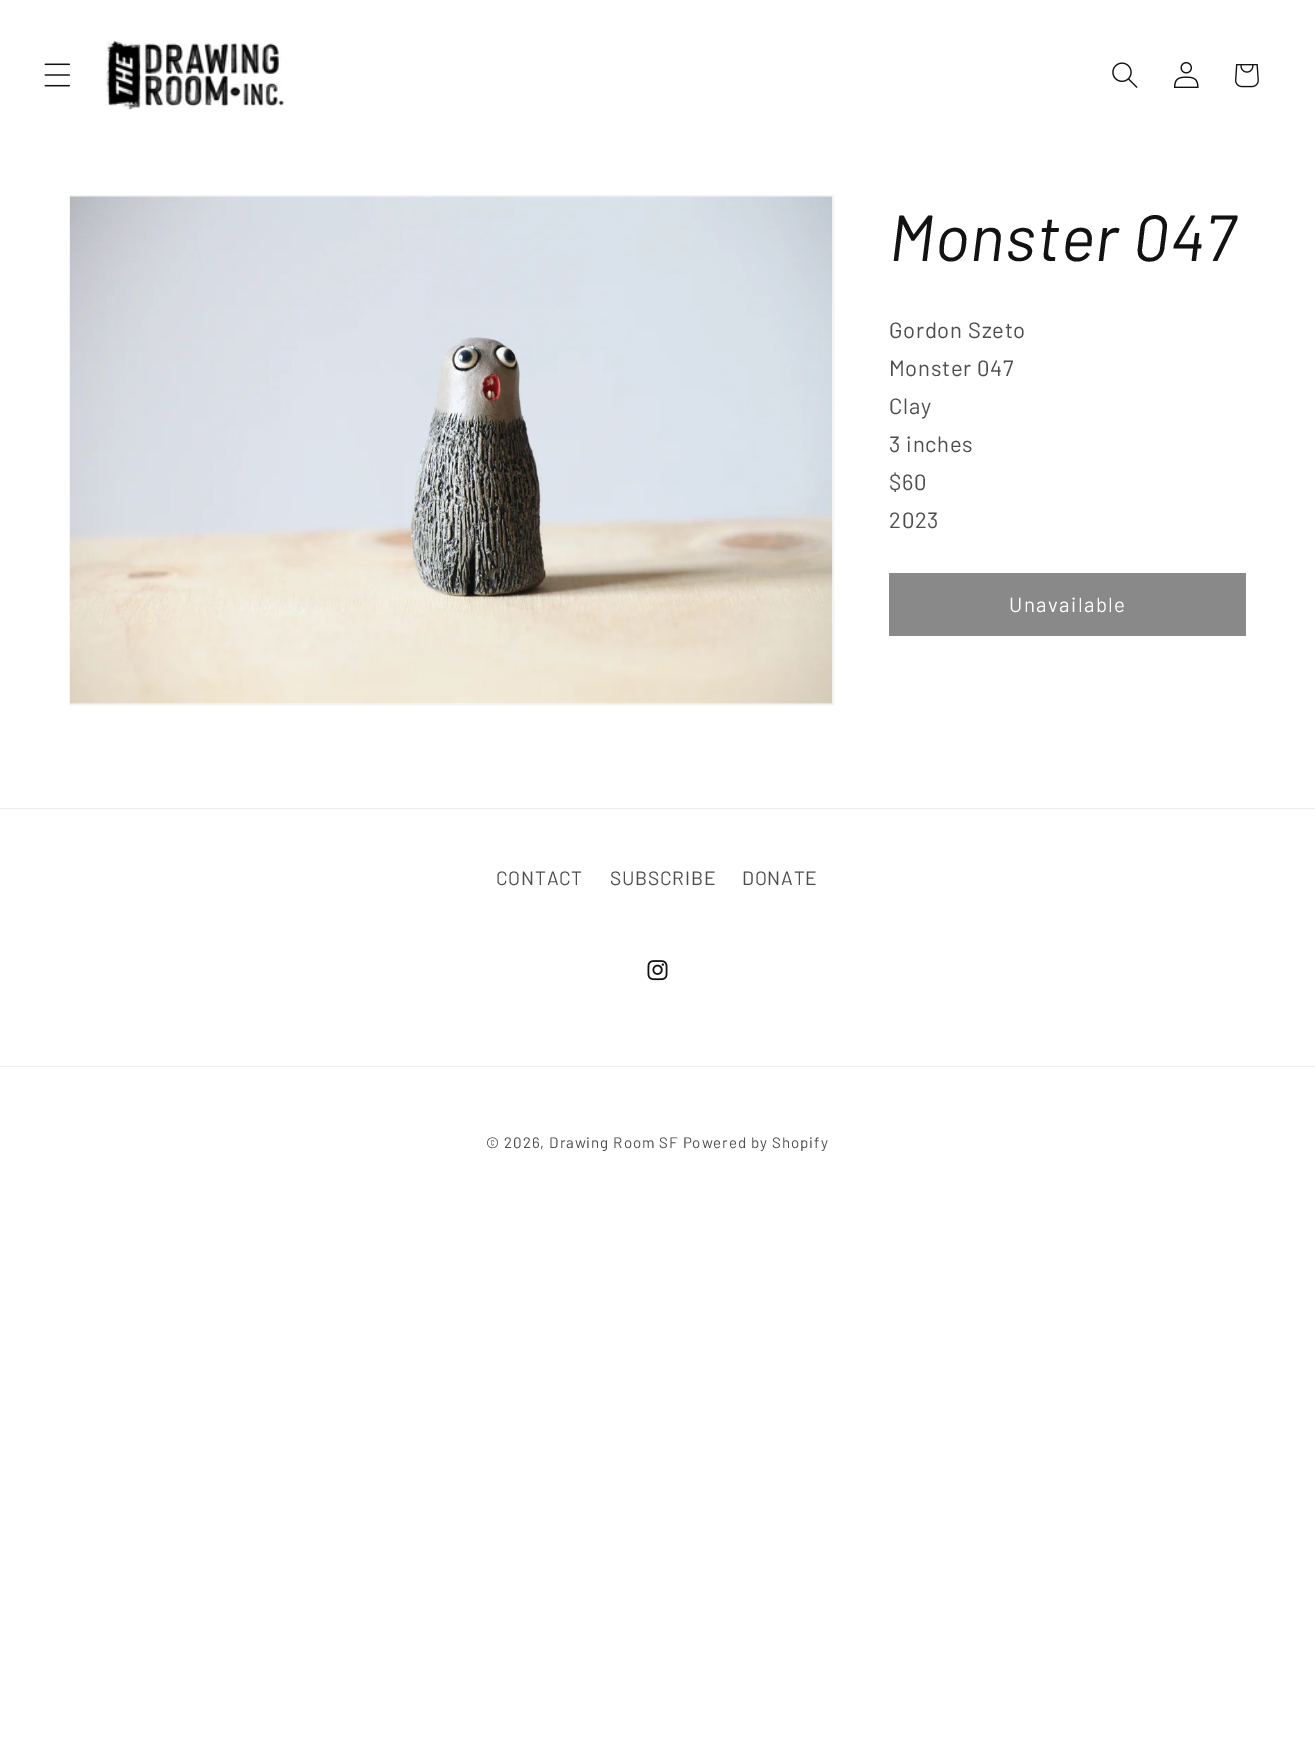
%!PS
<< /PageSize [1315 1761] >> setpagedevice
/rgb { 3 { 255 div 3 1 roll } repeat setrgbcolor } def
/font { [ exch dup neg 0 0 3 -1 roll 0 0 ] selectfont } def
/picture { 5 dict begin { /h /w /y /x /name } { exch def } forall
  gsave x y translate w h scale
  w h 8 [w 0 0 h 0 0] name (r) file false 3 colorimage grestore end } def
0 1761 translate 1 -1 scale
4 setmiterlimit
255 255 255 rgb
0 0 1315 1761 rectfill
(img_01.rgb) 44 63 26 24 picture
(img_02.rgb) 106 40 178 70 picture
(img_03.rgb) 1112 62 26 26 picture
(img_04.rgb) 1173 62 26 26 picture
(img_05.rgb) 1235 64 24 24 picture
243 243 243 rgb
69.5 195.5 764 509 rectstroke
(img_06.rgb) 70 196 763 508 picture
137 137 137 rgb
889 573 357 63 rectfill
236 236 236 rgb
0 808 1315 1 rectfill
(img_07.rgb) 647 960 21 21 picture
0 1066 1315 1 rectfill
/Barlow-Italic 65 font
18 18 18 rgb
889 261 moveto 1 0 (Monster 047) ashow
/Barlow-Regular 22 font
77 77 77 rgb
889 338 moveto 0.75 0 (Gordon Szeto) ashow
889 376 moveto 0.75 0 (Monster 047) ashow
889 414 moveto 0.75 0 (Clay) ashow
889 452 moveto 0.75 0 (3 inches) ashow
889 490 moveto 0.75 0 ($60) ashow
889 528 moveto 0.75 0 (2023) ashow
/Barlow-Regular 20.5 font
255 255 255 rgb
1009 612 moveto 1.4 0 (Unavailable) ashow
/Barlow-Regular 19.25 font
77 77 77 rgb
496 885 moveto 0.75 0 (CONTACT) ashow
610 885 moveto 0.75 0 (SUBSCRIBE) ashow
742 885 moveto 0.75 0 (DONATE) ashow
/Barlow-Regular 15.1 font
486 1148 moveto 0.95 0 (© 2026, Drawing Room SF Powered by Shopify) ashow
showpage
